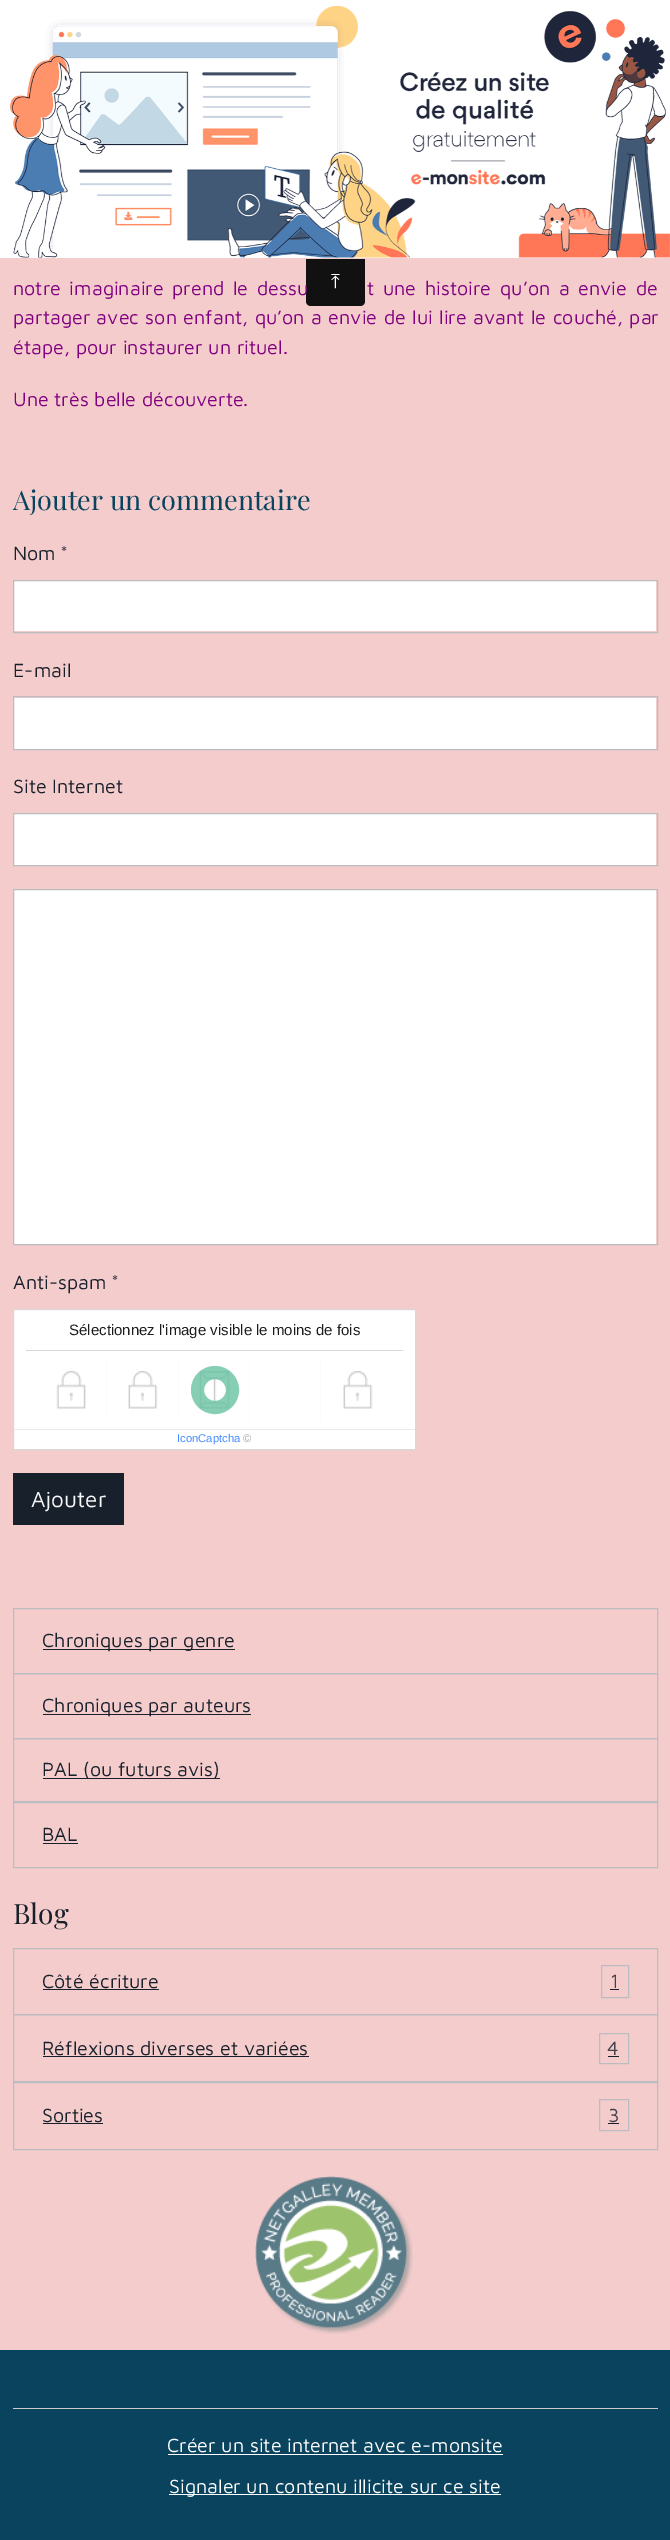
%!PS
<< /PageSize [670 2540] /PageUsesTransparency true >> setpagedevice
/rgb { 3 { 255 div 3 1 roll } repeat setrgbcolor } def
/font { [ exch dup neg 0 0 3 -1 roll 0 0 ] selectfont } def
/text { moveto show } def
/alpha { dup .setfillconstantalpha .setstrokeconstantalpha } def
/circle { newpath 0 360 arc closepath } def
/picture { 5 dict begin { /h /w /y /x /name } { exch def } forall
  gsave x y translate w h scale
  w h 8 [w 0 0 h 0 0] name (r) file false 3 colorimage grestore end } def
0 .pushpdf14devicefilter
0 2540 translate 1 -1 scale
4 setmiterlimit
244 204 204 rgb
0 0 670 2540 rectfill
255 255 255 rgb
0 0 670 258 rectfill
(img_01.rgb) 10 5 660 253 picture
17 17 17 rgb
306 259 moveto 59 0 rlineto 0 42 rlineto 0 3 -2 5 -5 5 rcurveto -49 0 rlineto -3 0 -5 -2 -5 -5 rcurveto closepath fill
255 255 255 rgb
14 581 642 50 rectfill
186 188 191 rgb
13.5 580.5 644 52 rectstroke
255 255 255 rgb
14 698 642 51 rectfill
186 188 191 rgb
13.5 696.5 644 53 rectstroke
255 255 255 rgb
14 814 642 51 rectfill
186 188 191 rgb
13.5 813.5 644 52 rectstroke
255 255 255 rgb
14 890 642 354 rectfill
186 188 191 rgb
13.5 889.5 644 355 rectstroke
255 255 255 rgb
13.5 1309.5 moveto 402 0 rlineto 0 140 rlineto -402 0 rlineto closepath gsave fill grestore
216 216 216 rgb
stroke
26 1350 377 1 rectfill
(img_02.rgb) 56 1371 30 38 picture
251 251 251 rgb
106 1359 1 62 rectfill
(img_03.rgb) 128 1371 30 38 picture
178 1359 1 62 rectfill
(img_04.rgb) 199 1371 31 38 picture
249 1359 1 62 rectfill
320 1359 1 62 rectfill
0.8 alpha
104 195 163 rgb
13 setlinewidth
215 1390 17.5 circle stroke
1 alpha
(img_03.rgb) 343 1371 30 38 picture
234 234 234 rgb
14 1429 401 1 rectfill
24 32 43 rgb
13 1473 111 52 rectfill
186 188 191 rgb
1 setlinewidth
13.5 1608.5 644 65 rectstroke
24 32 43 rgb
43 1649 192 1 rectfill
186 188 191 rgb
13.5 1673.5 644 65 rectstroke
24 32 43 rgb
43 1714 208 1 rectfill
186 188 191 rgb
13.5 1738.5 644 64 rectstroke
24 32 43 rgb
43 1778 177 1 rectfill
186 188 191 rgb
13.5 1801.5 644 66 rectstroke
24 32 43 rgb
43 1843 35 1 rectfill
186 188 191 rgb
13.5 1948.5 644 66 rectstroke
24 32 43 rgb
43 1989 116 1 rectfill
186 188 191 rgb
601.5 1965.5 27 32 rectstroke
24 32 43 rgb
610 1989 9 1 rectfill
186 188 191 rgb
13.5 2014.5 644 68 rectstroke
24 32 43 rgb
43 2056 266 1 rectfill
186 188 191 rgb
599.5 2033.5 29 30 rectstroke
24 32 43 rgb
608 2056 11 1 rectfill
186 188 191 rgb
13.5 2081.5 644 68 rectstroke
24 32 43 rgb
43 2123 60 1 rectfill
186 188 191 rgb
599.5 2099.5 29 31 rectstroke
24 32 43 rgb
608 2123 11 1 rectfill
(img_05.rgb) 255 2176 158 158 picture
10 67 94 rgb
0 2350 670 190 rectfill
204 204 204 rgb
13 2408 645 1 rectfill
255 255 255 rgb
168 2454 335 1 rectfill
169 2494 332 1 rectfill
/FreeSerif-Regular 19.7 font
(⤒) 331 288 text
/MavenPro-Regular 19.7 font
128 0 128 rgb
13 295 moveto 3 0 32 (notre imaginaire prend le dessu) widthshow
367 295 moveto 3 0 32 (t une histoire qu’on a envie de) widthshow
13 324 moveto 0.75 0 32 (partager avec son enfant, qu’on a envie de lui lire avant le couché, par) widthshow
(étape, pour instaurer un rituel.) 13 354 text
(Une très belle découverte.) 13 406 text
/PlayfairDisplay-Regular 27 font
10 67 94 rgb
(Ajouter un commentaire) 13 510 text
/MavenPro-Regular 19.7 font
24 32 43 rgb
(Nom) 13 560 text
68 66 75 rgb
(*) 60 560 text
24 32 43 rgb
(E-mail) 13 677 text
(Site Internet) 13 793 text
(Anti-spam) 13 1289 text
68 66 75 rgb
(*) 111 1289 text
/LiberationSans-Regular 15 font
29 29 29 rgb
(Sélectionnez l'image visible le moins de fois) 69 1335 text
/LiberationSans-Regular 11.25 font
68 138 255 rgb
(IconCaptcha) 177 1442 text
167 167 167 rgb
(©) 243 1442 text
/MavenPro-Regular 22.5 font
248 248 248 rgb
(Ajouter) 31 1507 text
/MavenPro-Regular 19.7 font
24 32 43 rgb
(Chroniques par genre) 42 1647 text
(Chroniques par auteurs) 42 1712 text
(PAL \(ou futurs avis\)) 42 1776 text
(BAL) 42 1841 text
/PlayfairDisplay-Regular 28 font
(Blog) 13 1924 text
/MavenPro-Regular 19.7 font
(Côté écriture) 42 1988 text
68 66 75 rgb
(1) 610 1988 text
24 32 43 rgb
(Réflexions diverses et variées) 42 2055 text
68 66 75 rgb
(4) 607 2055 text
24 32 43 rgb
(Sorties) 42 2122 text
68 66 75 rgb
(3) 608 2122 text
255 255 255 rgb
(Créer un site internet avec e-monsite) 167 2452 text
(Signaler un contenu illicite sur ce site) 169 2493 text
.poppdf14devicefilter showpage
